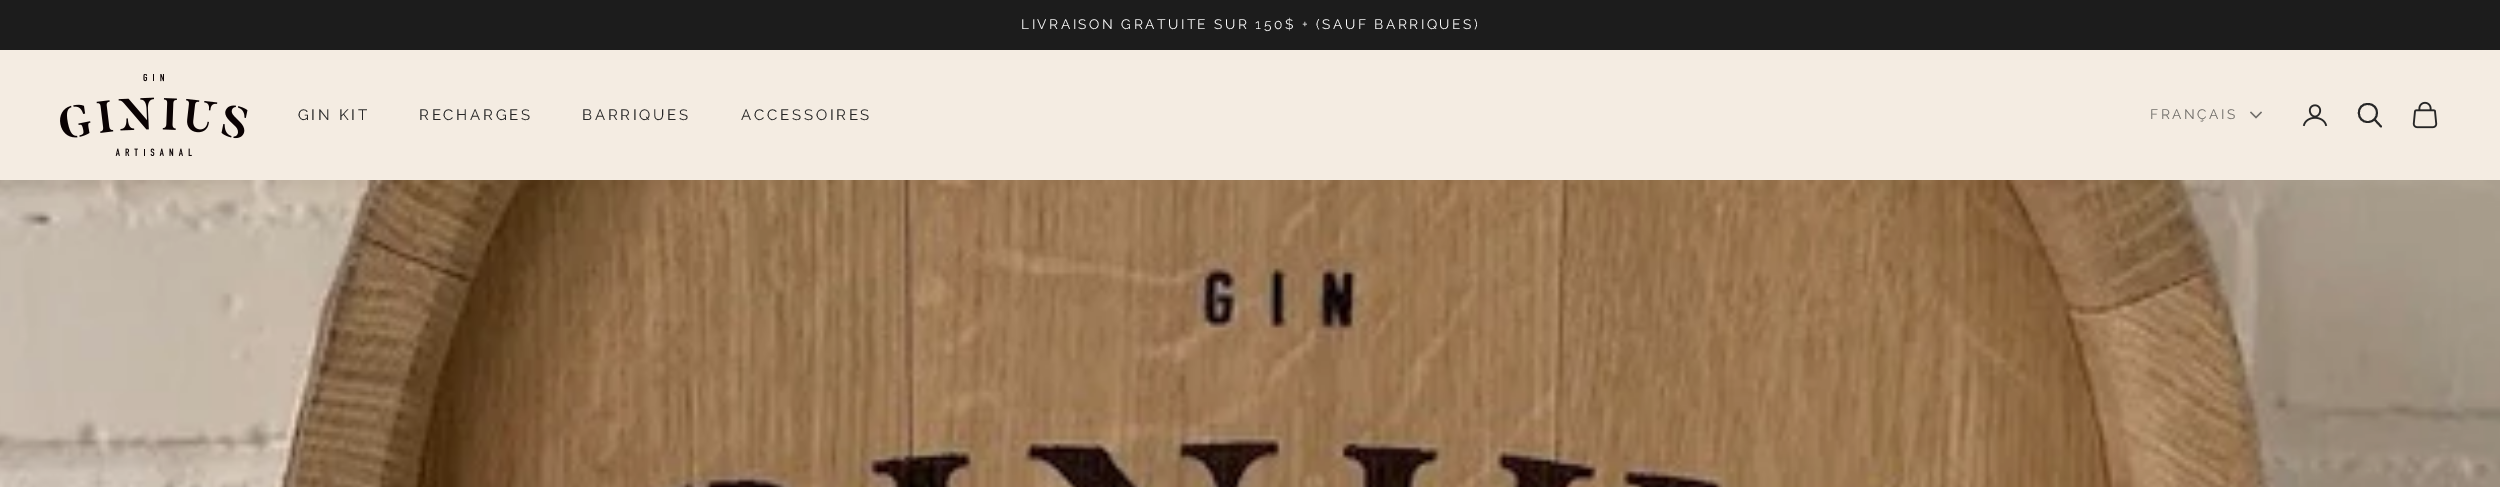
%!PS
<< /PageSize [2500 487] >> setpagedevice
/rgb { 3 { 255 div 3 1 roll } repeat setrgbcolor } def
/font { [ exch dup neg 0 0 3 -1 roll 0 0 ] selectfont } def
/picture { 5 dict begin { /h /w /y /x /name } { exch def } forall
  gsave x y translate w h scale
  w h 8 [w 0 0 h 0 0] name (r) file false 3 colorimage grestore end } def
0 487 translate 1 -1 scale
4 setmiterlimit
244 236 226 rgb
0 0 2500 487 rectfill
28 28 28 rgb
0 0 2500 50 rectfill
(img_01.rgb) 60 74 188 82 picture
111 108 104 rgb
1.2 setlinewidth
2 setlinecap
2251 112.5 moveto 5 5 rlineto 5 -5 rlineto stroke
(img_02.rgb) 2302 104 26 23 picture
39 39 39 rgb
1.9 setlinewidth
0 setlinecap
2368 104 moveto -12.5 -0.5 -12 18.5 0 18 rcurveto 12 -0.5 12 -18 0 -18 rcurveto closepath stroke
1 setlinecap
2375 120 moveto 6 6.5 rlineto stroke
(img_03.rgb) 2412 101 26 28 picture
(img_04.rgb) 0 180 2500 307 picture
/Raleway-Regular 13.75 font
255 255 255 rgb
1021 29 moveto 2.5 0 (LIVRAISON GRATUITE SUR 150$ + \(SAUF BARRIQUES\)) ashow
/Raleway-Regular 15 font
39 39 39 rgb
298 120 moveto 2.75 0 (GIN KIT) ashow
419 120 moveto 2.75 0 (RECHARGES) ashow
582 120 moveto 2.75 0 (BARRIQUES) ashow
741 120 moveto 2.75 0 (ACCESSOIRES) ashow
/Raleway-Regular 13.75 font
111 108 104 rgb
2150 119 moveto 2.5 0 (FRANÇAIS) ashow
showpage
